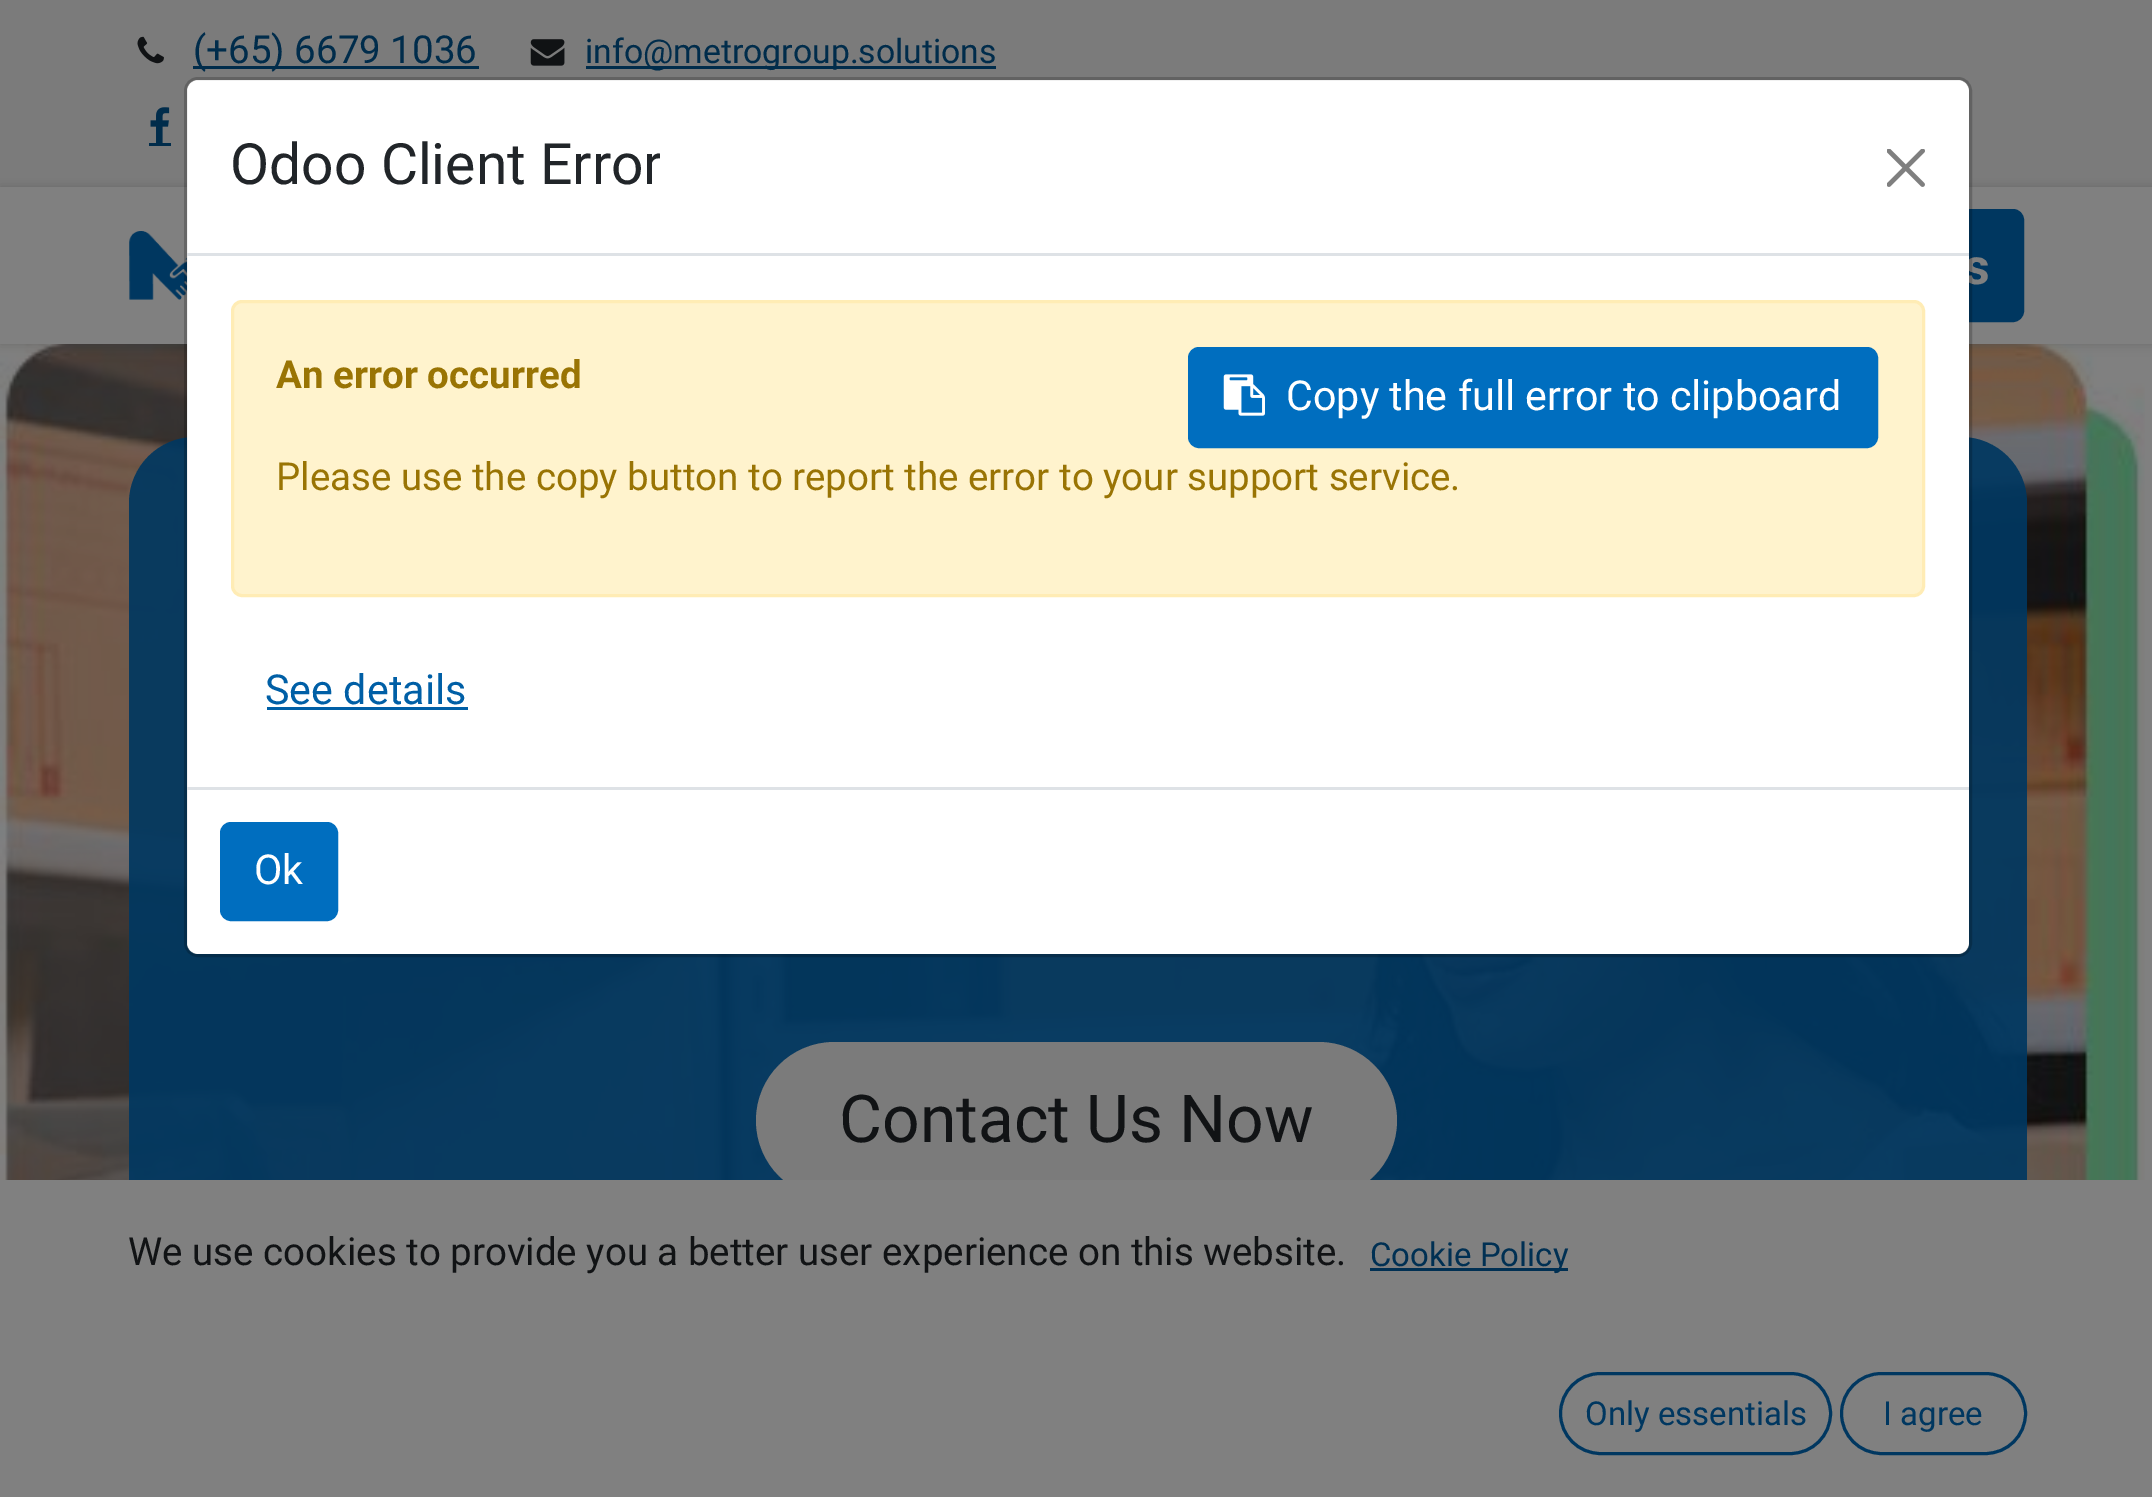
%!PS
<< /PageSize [2152 1497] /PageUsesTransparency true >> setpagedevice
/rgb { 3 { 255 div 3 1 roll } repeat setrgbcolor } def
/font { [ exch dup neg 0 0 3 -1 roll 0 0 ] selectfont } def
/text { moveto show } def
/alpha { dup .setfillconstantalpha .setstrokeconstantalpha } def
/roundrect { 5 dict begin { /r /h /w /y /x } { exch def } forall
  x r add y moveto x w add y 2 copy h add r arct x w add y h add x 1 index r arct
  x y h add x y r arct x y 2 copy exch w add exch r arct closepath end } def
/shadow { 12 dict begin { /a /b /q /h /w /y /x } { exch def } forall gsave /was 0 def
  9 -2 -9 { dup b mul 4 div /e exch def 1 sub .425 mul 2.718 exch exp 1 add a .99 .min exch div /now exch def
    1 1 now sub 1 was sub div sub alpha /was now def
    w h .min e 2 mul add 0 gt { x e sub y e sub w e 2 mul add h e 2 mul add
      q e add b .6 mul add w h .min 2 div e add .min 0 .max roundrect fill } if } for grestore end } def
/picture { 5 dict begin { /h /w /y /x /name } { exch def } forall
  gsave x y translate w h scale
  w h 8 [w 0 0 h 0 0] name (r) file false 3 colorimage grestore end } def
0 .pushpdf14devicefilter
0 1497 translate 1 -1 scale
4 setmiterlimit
128 128 128 rgb
0 0 2152 1497 rectfill
123 123 123 rgb
0 0 2152 187 rectfill
(img_01.rgb) 137 36 27 28 picture
0 44 75 rgb
193 66 286 3 rectfill
(img_02.rgb) 530 39 35 27 picture
586 66 410 3 rectfill
149 143 22 3 rectfill
(img_03.rgb) 150 107 20 36 picture
(img_05.rgb) 0 344 2145 836 picture
0 0 0 rgb
0 187 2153 157 0 5.5 0.15 shadow
128 128 128 rgb
0 187 2152 157 rectfill
(img_04.rgb) 129 231 58 69 picture
0 55 96 rgb
1712.5 210.5 310 110 9.5 roundrect gsave fill grestore
3 setlinewidth
stroke
0.92 alpha
129 437 1898 971 66 roundrect fill
1 alpha
123 123 123 rgb
756 1042 641 157 78.5 roundrect fill
128 128 128 rgb
129 1180 1898 228 rectfill
0 48 83 rgb
1370 1268 198 3 rectfill
0 55 96 rgb
1560.5 1373.5 270 80 40 roundrect stroke
1841.5 1373.5 184 80 40 roundrect stroke
/Roboto-Regular 38.5 font
0 44 75 rgb
(\(+65\) 6679 1036) 193 63 text
/Roboto-Regular 33.75 font
(info@metrogroup.solutions) 585 63 text
/Roboto-Bold 50 font
128 128 128 rgb
(s) 1964 284 text
/Roboto-Regular 66 font
17 19 21 rgb
(Contact Us Now) 839 1142 text
/Roboto-Regular 38.5 font
(We use cookies to provide you a better user experience on this website.) 128 1265 text
/Roboto-Regular 33 font
0 48 83 rgb
(Cookie Policy) 1370 1266 text
0 55 96 rgb
(Only essentials) 1585 1425 text
(I agree) 1883 1425 text
255 255 255 rgb
187 80 1782 874 11 roundrect fill
0.2 alpha
0 0 0 rgb
185.5 78.5 1785 877 12.5 roundrect stroke
1 alpha
222 226 230 rgb
187 253 1782 3 rectfill
gsave
231 124 429 85 rectclip
/Roboto-Regular 57 font
33 37 41 rgb
(Odoo Client Error) 230 184 text
grestore
(img_06.rgb) 1887 149 38 38 picture
255 243 205 rgb
232.5 301.5 1691 294 9.5 roundrect gsave fill grestore
255 236 181 rgb
stroke
/Roboto-Bold 38.5 font
153 116 4 rgb
(An error occurred) 276 388 text
0 110 191 rgb
1189.5 348.5 687 98 9.5 roundrect gsave fill grestore
stroke
(img_07.rgb) 1223 374 42 42 picture
/Roboto-Regular 41.25 font
255 255 255 rgb
(Copy the full error to clipboard) 1286 410 text
/Roboto-Regular 38.5 font
153 116 4 rgb
(Please use the copy button to report the error to your support service.) 276 490 text
/Roboto-Regular 41.25 font
0 95 166 rgb
(See details) 265 704 text
267 707 201 3 rectfill
222 226 230 rgb
187 787 1782 3 rectfill
0 110 191 rgb
221.5 823.5 115 96 9.5 roundrect gsave fill grestore
stroke
255 255 255 rgb
(Ok) 254 884 text
.poppdf14devicefilter showpage
